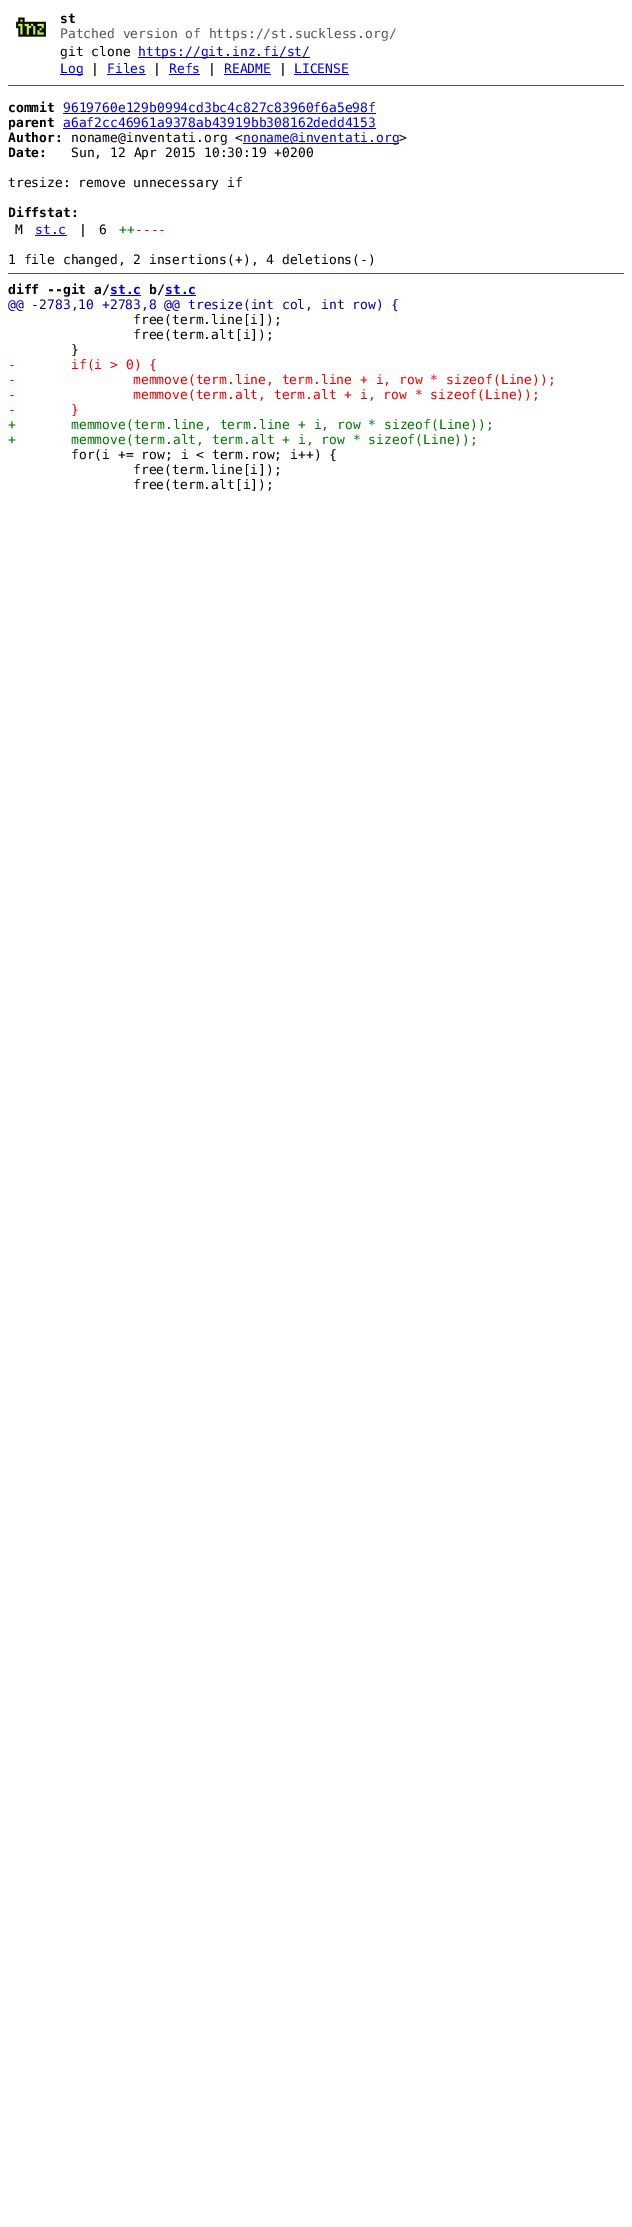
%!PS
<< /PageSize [632 2227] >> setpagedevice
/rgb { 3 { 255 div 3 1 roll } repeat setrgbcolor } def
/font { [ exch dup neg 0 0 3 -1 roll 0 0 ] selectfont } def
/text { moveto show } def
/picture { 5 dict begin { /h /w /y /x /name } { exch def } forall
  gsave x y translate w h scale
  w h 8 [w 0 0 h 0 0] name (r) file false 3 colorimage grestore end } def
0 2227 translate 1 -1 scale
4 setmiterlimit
255 255 255 rgb
0 0 632 2227 rectfill
(img_01.rgb) 16 17 30 20 picture
0 0 238 rgb
138 57 172 1 rectfill
60 74 23 1 rectfill
107 74 39 1 rectfill
169 74 31 1 rectfill
224 74 47 1 rectfill
294 74 55 1 rectfill
85 85 85 rgb
8 85 616 1 rectfill
0 0 238 rgb
63 113 313 1 rectfill
63 128 313 1 rectfill
243 143 156 1 rectfill
35 235 32 1 rectfill
85 85 85 rgb
8 273 616 1 rectfill
0 0 238 rgb
110 295 31 1 rectfill
165 295 31 1 rectfill
/DejaVuSansMono-Bold 13 font
0 0 0 rgb
(st) 60 23 text
/DejaVuSansMono-Regular 13 font
85 85 85 rgb
(Patched version of https://st.suckless.org/) 60 38 text
0 0 0 rgb
(git clone) 60 56 text
0 0 238 rgb
(https://git.inz.fi/st/) 138 56 text
(Log) 60 73 text
0 0 0 rgb
(|) 91 73 text
0 0 238 rgb
(Files) 107 73 text
0 0 0 rgb
(|) 153 73 text
0 0 238 rgb
(Refs) 169 73 text
0 0 0 rgb
(|) 208 73 text
0 0 238 rgb
(README) 224 73 text
0 0 0 rgb
(|) 279 73 text
0 0 238 rgb
(LICENSE) 294 73 text
/DejaVuSansMono-Bold 13 font
0 0 0 rgb
(commit) 8 112 text
/DejaVuSansMono-Regular 13 font
0 0 238 rgb
(9619760e129b0994cd3bc4c827c83960f6a5e98f) 63 112 text
/DejaVuSansMono-Bold 13 font
0 0 0 rgb
(parent) 8 127 text
/DejaVuSansMono-Regular 13 font
0 0 238 rgb
(a6af2cc46961a9378ab43919bb308162dedd4153) 63 127 text
/DejaVuSansMono-Bold 13 font
0 0 0 rgb
(Author:) 8 142 text
/DejaVuSansMono-Regular 13 font
(noname@inventati.org <) 71 142 text
0 0 238 rgb
(noname@inventati.org) 243 142 text
0 0 0 rgb
(>) 399 142 text
/DejaVuSansMono-Bold 13 font
(Date:) 8 157 text
/DejaVuSansMono-Regular 13 font
(Sun, 12 Apr 2015 10:30:19 +0200) 71 157 text
(tresize: remove unnecessary if) 8 187 text
/DejaVuSansMono-Bold 13 font
(Diffstat:) 8 217 text
/DejaVuSansMono-Regular 13 font
(M) 15 234 text
0 0 238 rgb
(st.c) 35 234 text
0 0 0 rgb
(|) 79 234 text
(6) 99 234 text
0 119 0 rgb
(++) 119 234 text
238 0 0 rgb
(----) 135 234 text
0 0 0 rgb
(1 file changed, 2 insertions\(+\), 4 deletions\(-\)) 8 264 text
/DejaVuSansMono-Bold 13 font
(diff --git a/) 8 294 text
0 0 238 rgb
(st.c) 110 294 text
0 0 0 rgb
(b/) 149 294 text
0 0 238 rgb
(st.c) 165 294 text
/DejaVuSansMono-Regular 13 font
0 0 170 rgb
(@@ -2783,10 +2783,8 @@ tresize\(int col, int row\) {) 8 309 text
0 0 0 rgb
(free\(term.line[i]\);) 133 324 text
(free\(term.alt[i]\);) 133 339 text
(}) 71 354 text
238 0 0 rgb
(-) 8 369 text
(if\(i > 0\) {) 71 369 text
(-) 8 384 text
(memmove\(term.line, term.line + i, row * sizeof\(Line\)\);) 133 384 text
(-) 8 399 text
(memmove\(term.alt, term.alt + i, row * sizeof\(Line\)\);) 133 399 text
(-) 8 414 text
(}) 71 414 text
0 119 0 rgb
(+) 8 429 text
(memmove\(term.line, term.line + i, row * sizeof\(Line\)\);) 71 429 text
(+) 8 444 text
(memmove\(term.alt, term.alt + i, row * sizeof\(Line\)\);) 71 444 text
0 0 0 rgb
(for\(i += row; i < term.row; i++\) {) 71 459 text
(free\(term.line[i]\);) 133 474 text
(free\(term.alt[i]\);) 133 489 text
showpage
